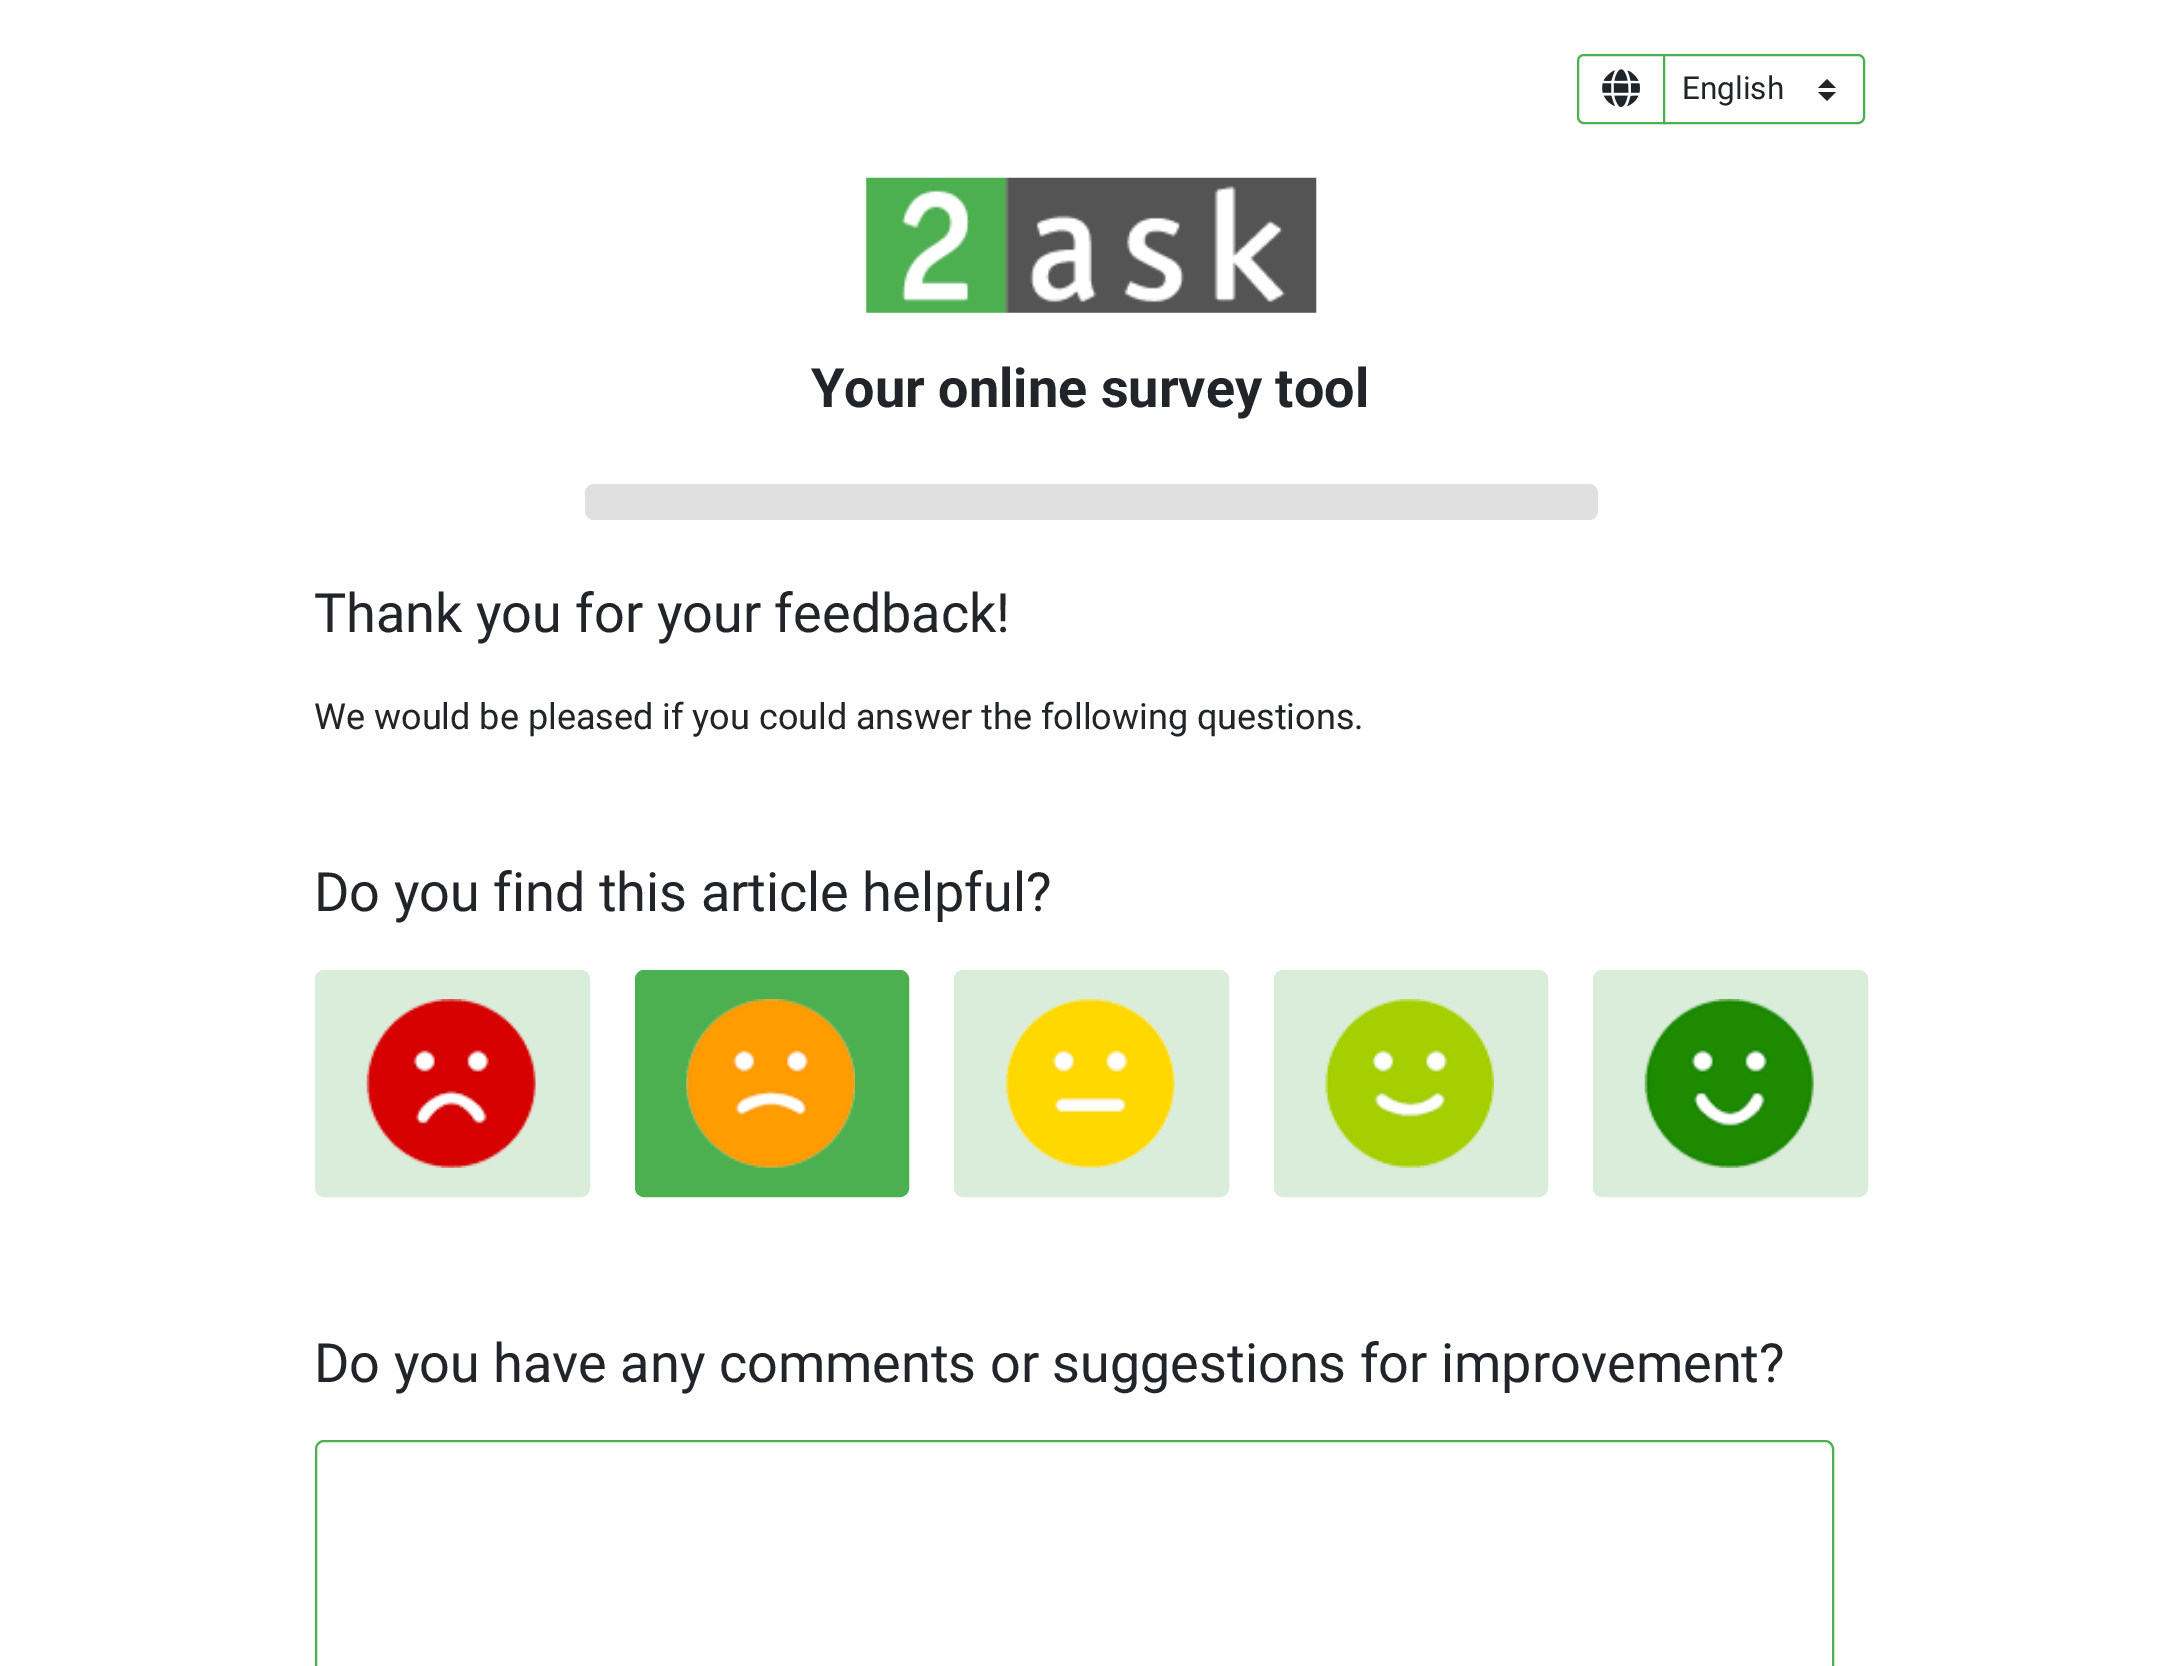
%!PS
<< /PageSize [2179 1666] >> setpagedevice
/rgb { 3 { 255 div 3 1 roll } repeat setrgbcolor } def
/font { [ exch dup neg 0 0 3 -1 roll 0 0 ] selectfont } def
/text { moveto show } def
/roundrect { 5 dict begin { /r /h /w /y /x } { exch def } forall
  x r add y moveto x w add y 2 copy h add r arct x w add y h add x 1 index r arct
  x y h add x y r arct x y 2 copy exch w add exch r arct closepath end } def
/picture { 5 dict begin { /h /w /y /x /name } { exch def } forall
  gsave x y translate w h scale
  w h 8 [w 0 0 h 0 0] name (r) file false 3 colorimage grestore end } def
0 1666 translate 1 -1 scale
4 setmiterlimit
255 255 255 rgb
0 0 2179 1666 rectfill
76 175 80 rgb
2 setlinewidth
1584 55 moveto 80 0 rlineto 0 68 rlineto -80 0 rlineto -3.5 0 -6 -2.5 -6 -6 rcurveto 0 -56 rlineto 0 -3.5 2.5 -6 6 -6 rcurveto closepath stroke
(img_01.rgb) 1602 69 38 38 picture
255 255 255 rgb
1663 54 moveto 195 0 rlineto 4 0 7 3 7 7 rcurveto 0 56 rlineto 0 4 -3 7 -7 7 rcurveto -195 0 rlineto closepath fill
33 37 41 rgb
1827 79 moveto -9 9 rlineto 18 0 rlineto closepath 1827 101 moveto -9 -9 rlineto 18 0 rlineto closepath fill
76 175 80 rgb
1664 55 moveto 194 0 rlineto 3.5 0 6 2.5 6 6 rcurveto 0 56 rlineto 0 3.5 -2.5 6 -6 6 rcurveto -194 0 rlineto closepath stroke
(img_02.rgb) 866 177 451 136 picture
224 224 224 rgb
585 484 1013 36 9 roundrect fill
218 236 218 rgb
316 971 273 225 8 roundrect gsave fill grestore
stroke
(img_03.rgb) 366 999 170 169 picture
76 175 80 rgb
636 971 272 225 8 roundrect gsave fill grestore
stroke
(img_04.rgb) 686 999 169 169 picture
218 236 218 rgb
955 971 273 225 8 roundrect gsave fill grestore
stroke
(img_05.rgb) 1005 999 170 169 picture
1275 971 272 225 8 roundrect gsave fill grestore
stroke
(img_06.rgb) 1325 999 169 169 picture
1594 971 273 225 8 roundrect gsave fill grestore
stroke
(img_07.rgb) 1644 999 170 169 picture
76 175 80 rgb
316 1441 1517 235 8 roundrect stroke
/Roboto-Regular 31.5 font
33 37 41 rgb
(English) 1682 99 text
/Roboto-Bold 54 font
(Your online survey tool) 811 407 text
/Roboto-Regular 54 font
(Thank you for your feedback!) 314 632 text
/Roboto-Regular 36 font
(We would be pleased if you could answer the following questions.) 314 729 text
/Roboto-Regular 54 font
(Do you find this article helpful?) 314 911 text
(Do you have any comments or suggestions for improvement?) 314 1382 text
showpage
